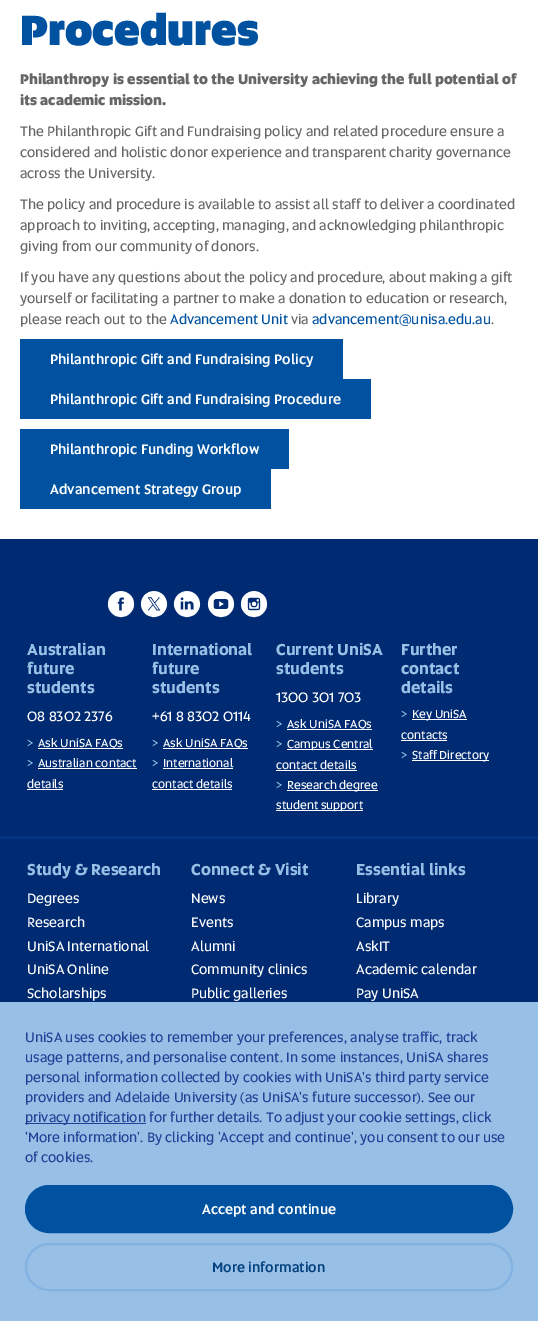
%!PS
<< /PageSize [538 1321] >> setpagedevice
/rgb { 3 { 255 div 3 1 roll } repeat setrgbcolor } def
/font { [ exch dup neg 0 0 3 -1 roll 0 0 ] selectfont } def
/text { moveto show } def
/roundrect { 5 dict begin { /r /h /w /y /x } { exch def } forall
  x r add y moveto x w add y 2 copy h add r arct x w add y h add x 1 index r arct
  x y h add x y r arct x y 2 copy exch w add exch r arct closepath end } def
/picture { 5 dict begin { /h /w /y /x /name } { exch def } forall
  gsave x y translate w h scale
  w h 8 [w 0 0 h 0 0] name (r) file false 3 colorimage grestore end } def
0 1321 translate 1 -1 scale
4 setmiterlimit
255 255 255 rgb
0 0 538 1321 rectfill
0 82 160 rgb
20 339 323 40 rectfill
20 379 351 40 rectfill
20 429 269 40 rectfill
20 469 251 40 rectfill
0 43 114 rgb
0 539 538 463 rectfill
0 54 129 rgb
0 836 538 3 rectfill
(img_01.rgb) 107 591 28 27 picture
(img_02.rgb) 140 591 28 27 picture
(img_03.rgb) 173 591 28 27 picture
(img_04.rgb) 207 591 28 27 picture
(img_05.rgb) 240 591 28 27 picture
255 255 255 rgb
38 748 85 1 rectfill
38 768 99 1 rectfill
27 789 36 1 rectfill
163 748 85 1 rectfill
163 768 70 1 rectfill
152 789 80 1 rectfill
287 729 85 1 rectfill
287 749 86 1 rectfill
276 770 81 1 rectfill
287 790 91 1 rectfill
276 810 87 1 rectfill
412 719 55 1 rectfill
401 740 46 1 rectfill
412 760 77 1 rectfill
152 192 230 rgb
0 1002 538 319 rectfill
32 65 150 rgb
25 1123 121 1 rectfill
0 82 160 rgb
26 1186 486 46 23 roundrect gsave fill grestore
2 setlinewidth
stroke
129 178 225 rgb
26 1244 486 46 23 roundrect stroke
/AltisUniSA-Black 42 font
0 82 160 rgb
(Procedures) 20 45 text
/AltisUniSA-ExtraBold 14 font
102 102 102 rgb
(Philanthropy is essential to the University achieving the full potential of) 20 84 text
(its academic mission.) 20 105 text
/AltisUniSA-Regular 14 font
(The Philanthropic Gift and Fundraising policy and related procedure ensure a) 20 136 text
(considered and holistic donor experience and transparent charity governance) 20 157 text
(across the University.) 20 178 text
(The policy and procedure is available to assist all staff to deliver a coordinated) 20 209 text
(approach to inviting, accepting, managing, and acknowledging philanthropic) 20 230 text
(giving from our community of donors.) 20 251 text
(If you have any questions about the policy and procedure, about making a gift) 20 282 text
(yourself or facilitating a partner to make a donation to education or research,) 20 303 text
(please reach out to the) 20 324 text
0 82 160 rgb
(Advancement Unit) 170 324 text
102 102 102 rgb
(via) 291 324 text
0 82 160 rgb
(advancement@unisa.edu.au) 312 324 text
102 102 102 rgb
(.) 491 324 text
/AltisUniSA-Medium 14 font
255 255 255 rgb
(Philanthropic Gift and Fundraising Policy) 50 364 text
(Philanthropic Gift and Fundraising Procedure) 50 404 text
(Philanthropic Funding Workflow) 50 454 text
(Advancement Strategy Group) 50 494 text
/AltisUniSA-Bold 16 font
152 192 230 rgb
(Australian) 27 655 text
(future) 27 674 text
(students) 27 693 text
/AltisUniSA-Regular 14 font
255 255 255 rgb
(08 8302 2376) 27 721 text
/AltisUniSA-Regular 12 font
152 192 230 rgb
(>) 27 747 text
255 255 255 rgb
(Ask UniSA FAQs) 38 747 text
152 192 230 rgb
(>) 27 767 text
255 255 255 rgb
(Australian contact) 38 767 text
(details) 27 788 text
/AltisUniSA-Bold 16 font
152 192 230 rgb
(International) 152 655 text
(future) 152 674 text
(students) 152 693 text
/AltisUniSA-Regular 14 font
255 255 255 rgb
(+61 8 8302 0114) 152 721 text
/AltisUniSA-Regular 12 font
152 192 230 rgb
(>) 152 747 text
255 255 255 rgb
(Ask UniSA FAQs) 163 747 text
152 192 230 rgb
(>) 152 767 text
255 255 255 rgb
(International) 163 767 text
(contact details) 152 788 text
/AltisUniSA-Bold 16 font
152 192 230 rgb
(Current UniSA) 276 655 text
(students) 276 674 text
/AltisUniSA-Regular 14 font
255 255 255 rgb
(1300 301 703) 276 702 text
/AltisUniSA-Regular 12 font
152 192 230 rgb
(>) 276 728 text
255 255 255 rgb
(Ask UniSA FAQs) 287 728 text
152 192 230 rgb
(>) 276 748 text
255 255 255 rgb
(Campus Central) 287 748 text
(contact details) 276 769 text
152 192 230 rgb
(>) 276 789 text
255 255 255 rgb
(Research degree) 287 789 text
(student support) 276 809 text
/AltisUniSA-Bold 16 font
152 192 230 rgb
(Further) 401 655 text
(contact) 401 674 text
(details) 401 693 text
/AltisUniSA-Regular 12 font
(>) 401 718 text
255 255 255 rgb
(Key UniSA) 412 718 text
(contacts) 401 739 text
152 192 230 rgb
(>) 401 759 text
255 255 255 rgb
(Staff Directory) 412 759 text
/AltisUniSA-Bold 16 font
152 192 230 rgb
(Study & Research) 27 875 text
/AltisUniSA-Regular 14 font
255 255 255 rgb
(Degrees) 27 903 text
(Research) 27 927 text
(UniSA International) 27 951 text
(UniSA Online) 27 974 text
(Scholarships) 27 998 text
/AltisUniSA-Bold 16 font
152 192 230 rgb
(Connect & Visit) 191 875 text
/AltisUniSA-Regular 14 font
255 255 255 rgb
(News) 191 903 text
(Events) 191 927 text
(Alumni) 191 951 text
(Community clinics) 191 974 text
(Public galleries) 191 998 text
/AltisUniSA-Bold 16 font
152 192 230 rgb
(Essential links) 356 875 text
/AltisUniSA-Regular 14 font
255 255 255 rgb
(Library) 356 903 text
(Campus maps) 356 927 text
(AskIT) 356 951 text
(Academic calendar) 356 974 text
(Pay UniSA) 356 998 text
32 65 150 rgb
(UniSA uses cookies to remember your preferences, analyse traffic, track) 25 1042 text
(usage patterns, and personalise content. In some instances, UniSA shares) 25 1062 text
(personal information collected by cookies with UniSA's third party service) 25 1082 text
(providers and Adelaide University \(as UniSA's future successor\). See our) 25 1102 text
(privacy notification for further details. To adjust your cookie settings, click) 25 1122 text
('More information'. By clicking 'Accept and continue', you consent to our use) 25 1142 text
(of cookies.) 25 1162 text
/AltisUniSA-Medium 14 font
255 255 255 rgb
(Accept and continue) 202 1214 text
4 66 127 rgb
(More information) 212 1272 text
showpage
